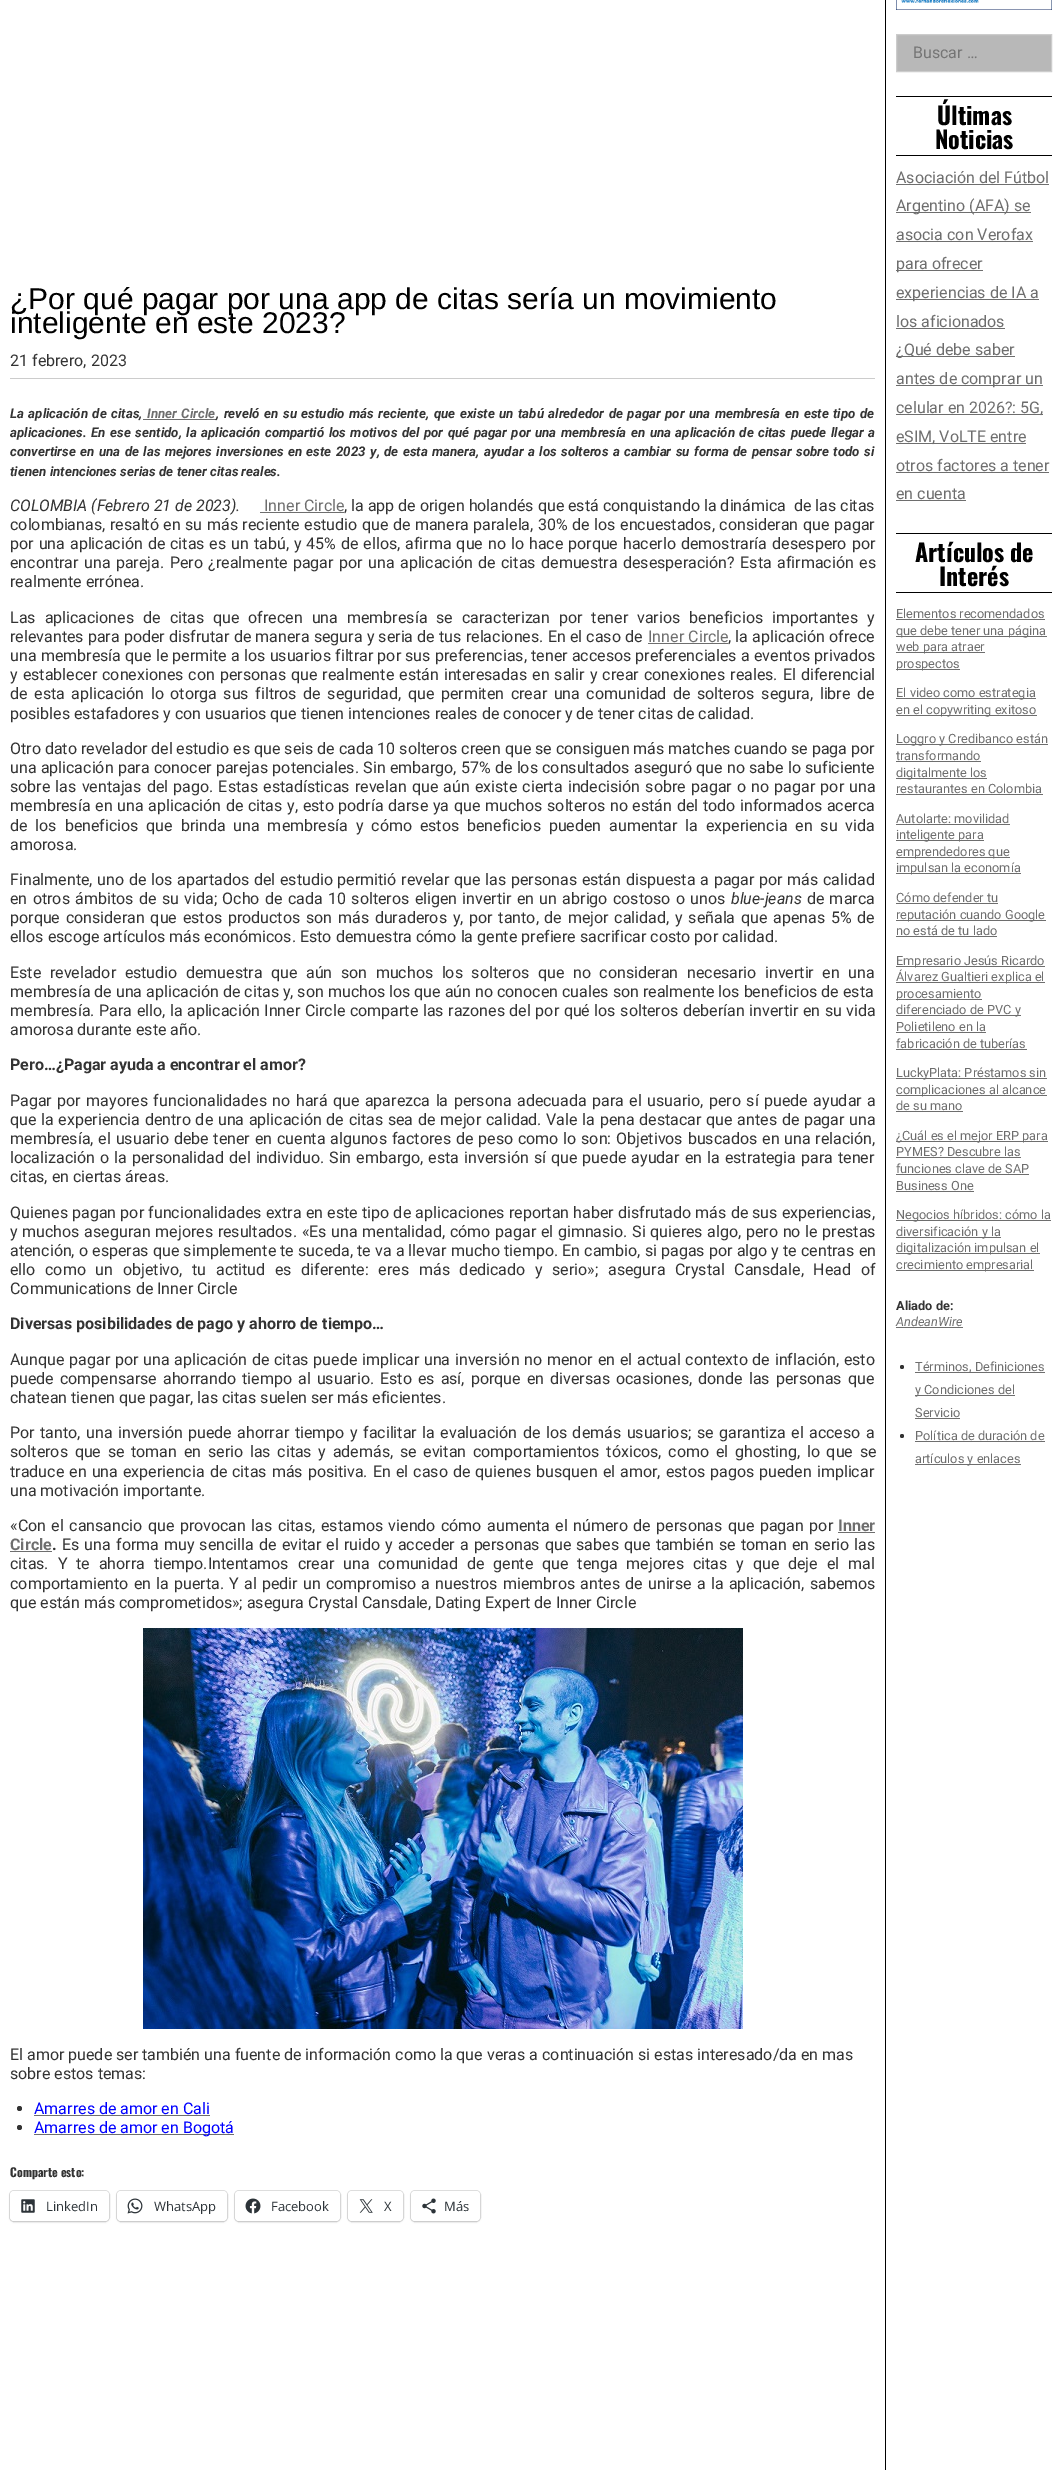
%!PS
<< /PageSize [1062 2470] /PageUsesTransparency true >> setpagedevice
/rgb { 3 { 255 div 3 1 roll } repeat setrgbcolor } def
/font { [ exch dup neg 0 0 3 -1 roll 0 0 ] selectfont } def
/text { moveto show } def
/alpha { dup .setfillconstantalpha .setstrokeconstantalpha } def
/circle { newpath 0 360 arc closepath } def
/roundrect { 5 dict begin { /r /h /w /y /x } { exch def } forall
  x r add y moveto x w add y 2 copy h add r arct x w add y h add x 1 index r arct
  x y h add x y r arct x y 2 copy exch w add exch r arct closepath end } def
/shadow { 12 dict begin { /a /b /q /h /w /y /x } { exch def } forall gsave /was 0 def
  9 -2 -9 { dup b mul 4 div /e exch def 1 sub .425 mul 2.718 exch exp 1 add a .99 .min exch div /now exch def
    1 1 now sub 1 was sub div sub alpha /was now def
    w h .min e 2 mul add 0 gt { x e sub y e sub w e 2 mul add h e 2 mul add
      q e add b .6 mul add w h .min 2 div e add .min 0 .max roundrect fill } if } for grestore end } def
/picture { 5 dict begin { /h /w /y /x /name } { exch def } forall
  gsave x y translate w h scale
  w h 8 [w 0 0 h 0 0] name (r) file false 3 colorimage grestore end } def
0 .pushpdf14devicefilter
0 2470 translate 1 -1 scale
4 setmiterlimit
255 255 255 rgb
0 0 1062 2470 rectfill
204 204 204 rgb
10 378 865 1 rectfill
110 110 110 rgb
143 419 73 1 rectfill
260 512 84 1 rectfill
648 643 80 1 rectfill
838 1532 37 1 rectfill
10 1551 42 1 rectfill
(img_01.rgb) 143 1628 600 401 picture
51 51 51 rgb
19.5 2108.5 2.5 circle fill
110 110 110 rgb
34 2115 176 1 rectfill
51 51 51 rgb
19.5 2127.5 2.5 circle fill
110 110 110 rgb
34 2134 200 1 rectfill
224 224 224 rgb
9.5 2190.5 100 31 4.5 roundrect stroke
0 0 0 rgb
10 2192 99 30 4 1 0.12 shadow
255 255 255 rgb
10 2191 99 30 4 roundrect fill
(img_02.rgb) 21 2199 14 14 picture
224 224 224 rgb
116.5 2190.5 111 31 4.5 roundrect stroke
0 0 0 rgb
117 2192 110 30 4 1 0.12 shadow
255 255 255 rgb
117 2191 110 30 4 roundrect fill
(img_03.rgb) 127 2198 16 16 picture
224 224 224 rgb
234.5 2190.5 106 31 4.5 roundrect stroke
0 0 0 rgb
235 2192 105 30 4 1 0.12 shadow
255 255 255 rgb
235 2191 105 30 4 roundrect fill
(img_04.rgb) 245 2198 16 16 picture
224 224 224 rgb
347.5 2190.5 56 31 4.5 roundrect stroke
0 0 0 rgb
348 2192 55 30 4 1 0.12 shadow
255 255 255 rgb
348 2191 55 30 4 roundrect fill
(img_05.rgb) 359 2199 14 14 picture
224 224 224 rgb
410.5 2190.5 70 31 4.5 roundrect stroke
0 0 0 rgb
411 2192 69 30 4 1 0.12 shadow
255 255 255 rgb
411 2191 69 30 4 roundrect fill
(img_06.rgb) 422 2198 14 16 picture
0 0 0 rgb
885 0 1 2470 rectfill
(img_07.rgb) 896 0 156 10 picture
184 184 184 rgb
896.5 34.5 moveto 155 0 rlineto 0 37 rlineto -155 0 rlineto closepath gsave fill grestore
204 204 204 rgb
stroke
0 0 0 rgb
896 96 156 1 rectfill
896 155 156 1 rectfill
110 110 110 rgb
896 184 153 1 rectfill
896 212 135 1 rectfill
896 241 137 1 rectfill
896 270 87 1 rectfill
896 299 143 1 rectfill
896 328 109 1 rectfill
896 356 119 1 rectfill
896 385 147 1 rectfill
896 414 147 1 rectfill
896 443 130 1 rectfill
896 472 153 1 rectfill
896 500 70 1 rectfill
0 0 0 rgb
896 533 156 1 rectfill
896 592 156 1 rectfill
110 110 110 rgb
896 619 149 1 rectfill
896 636 151 1 rectfill
896 652 89 1 rectfill
896 669 64 1 rectfill
896 698 140 1 rectfill
896 715 141 1 rectfill
896 744 152 1 rectfill
896 761 85 1 rectfill
896 778 91 1 rectfill
896 794 147 1 rectfill
896 824 114 1 rectfill
896 840 88 1 rectfill
896 857 114 1 rectfill
896 873 125 1 rectfill
896 903 102 1 rectfill
896 920 150 1 rectfill
896 936 101 1 rectfill
896 966 149 1 rectfill
896 982 149 1 rectfill
896 999 86 1 rectfill
896 1015 125 1 rectfill
896 1032 90 1 rectfill
896 1049 131 1 rectfill
896 1078 151 1 rectfill
896 1095 151 1 rectfill
896 1111 67 1 rectfill
896 1141 152 1 rectfill
896 1157 125 1 rectfill
896 1174 133 1 rectfill
896 1191 78 1 rectfill
896 1220 155 1 rectfill
896 1237 105 1 rectfill
896 1253 144 1 rectfill
896 1270 138 1 rectfill
896 1327 67 1 rectfill
51 51 51 rgb
902 1367 2 circle fill
110 110 110 rgb
915 1372 130 1 rectfill
915 1395 100 1 rectfill
915 1418 45 1 rectfill
51 51 51 rgb
902 1436 2 circle fill
110 110 110 rgb
915 1441 130 1 rectfill
915 1464 106 1 rectfill
/LiberationSans-Regular 30 font
0 0 0 rgb
(¿Por qué pagar por una app de citas sería un movimiento) 10 309 text
(inteligente en este 2023?) 10 333 text
/Roboto-Regular 16 font
51 51 51 rgb
(21 febrero, 2023) 10 366 text
/Roboto-BoldItalic 13.33 font
10 418 moveto 1.25 0 32 (La aplicación de citas,) widthshow
110 110 110 rgb
147 418 moveto 1 0 32 (Inner Circle) widthshow
51 51 51 rgb
216 418 moveto 1.25 0 32 (, reveló en su estudio más reciente, que existe un tabú alrededor de pagar por una membresía en este tipo de) widthshow
10 437 moveto 1.2 0 32 (aplicaciones. En ese sentido, la aplicación compartió los motivos del por qué pagar por una membresía en una aplicación de citas puede llegar a) widthshow
10 456 moveto 1.15 0 32 (convertirse en una de las mejores inversiones en este 2023 y, de esta manera, ayudar a los solteros a cambiar su forma de pensar sobre todo si) widthshow
(tienen intenciones serias de tener citas reales.) 10 476 text
/Roboto-Italic 16 font
(COLOMBIA \(Febrero 21 de 2023\).) 10 511 text
/Roboto-Regular 16 font
110 110 110 rgb
(Inner Circle) 264 511 text
51 51 51 rgb
(, la app de origen holandés que está conquistando la dinámica  de las citas) 344 511 text
10 530 moveto 0.6 0 32 (colombianas, resaltó en su más reciente estudio que de manera paralela, 30% de los encuestados, consideran que pagar) widthshow
10 549 moveto 1 0 32 (por una aplicación de citas es un tabú, y 45% de ellos, afirma que no lo hace porque hacerlo demostraría desespero por) widthshow
10 568 moveto 1.5 0 32 (encontrar una pareja. Pero ¿realmente pagar por una aplicación de citas demuestra desesperación? Esta afirmación es) widthshow
(realmente errónea.) 10 587 text
10 623 moveto 5 0 32 (Las aplicaciones de citas que ofrecen una membresía se caracterizan por tener varios beneficios importantes y) widthshow
10 642 moveto 0.25 0 32 (relevantes para poder disfrutar de manera segura y seria de tus relaciones. En el caso de) widthshow
110 110 110 rgb
648 642 moveto 0.3 0 32 (Inner Circle) widthshow
51 51 51 rgb
728 642 moveto 0.3 0 32 (, la aplicación ofrece) widthshow
10 661 moveto 0.25 0 32 (una membresía que le permite a los usuarios filtrar por sus preferencias, tener accesos preferenciales a eventos privados) widthshow
10 680 moveto 1.1 0 32 (y establecer conexiones con personas que realmente están interesadas en salir y crear conexiones reales. El diferencial) widthshow
10 699 moveto 2.6 0 32 (de esta aplicación lo otorga sus filtros de seguridad, que permiten crear una comunidad de solteros segura, libre de) widthshow
(posibles estafadores y con usuarios que tienen intenciones reales de conocer y de tener citas de calidad.) 10 719 text
(Otro dato revelador del estudio es que seis de cada 10 solteros creen que se consiguen más matches cuando se paga por) 10 754 text
10 773 moveto 0.3 0 32 (una aplicación para conocer parejas potenciales. Sin embargo, 57% de los consultados aseguró que no sabe lo suficiente) widthshow
10 792 moveto 1.25 0 32 (sobre las ventajas del pago. Estas estadísticas revelan que aún existe cierta indecisión sobre pagar o no pagar por una) widthshow
10 811 moveto 0.75 0 32 (membresía en una aplicación de citas y, esto podría darse ya que muchos solteros no están del todo informados acerca) widthshow
10 831 moveto 3.9 0 32 (de los beneficios que brinda una membresía y cómo estos beneficios pueden aumentar la experiencia en su vida) widthshow
(amorosa.) 10 850 text
10 885 moveto 0.75 0 32 (Finalmente, uno de los apartados del estudio permitió revelar que las personas están dispuesta a pagar por más calidad) widthshow
10 904 moveto 1.4 0 32 (en otros ámbitos de su vida; Ocho de cada 10 solteros eligen invertir en un abrigo costoso o unos) widthshow
/Roboto-Italic 16 font
(blue-jeans) 731 904 text
/Roboto-Regular 16 font
807 904 moveto 1 0 32 (de marca) widthshow
10 923 moveto 1.8 0 32 (porque consideran que estos productos son más duraderos y, por tanto, de mejor calidad, y señala que apenas 5% de) widthshow
(ellos escoge artículos más económicos. Esto demuestra cómo la gente prefiere sacrificar costo por calidad.) 10 942 text
10 978 moveto 4.6 0 32 (Este revelador estudio demuestra que aún son muchos los solteros que no consideran necesario invertir en una) widthshow
(membresía de una aplicación de citas y, son muchos los que aún no conocen cuales son realmente los beneficios de esta) 10 997 text
10 1016 moveto 0.6 0 32 (membresía. Para ello, la aplicación Inner Circle comparte las razones del por qué los solteros deberían invertir en su vida) widthshow
(amorosa durante este año.) 10 1035 text
/Roboto-Bold 16 font
(Pero…¿Pagar ayuda a encontrar el amor?) 10 1070 text
/Roboto-Regular 16 font
10 1106 moveto 1.5 0 32 (Pagar por mayores funcionalidades no hará que aparezca la persona adecuada para el usuario, pero sí puede ayudar a) widthshow
10 1125 moveto 0.75 0 32 (que la experiencia dentro de una aplicación de citas sea de mejor calidad. Vale la pena destacar que antes de pagar una) widthshow
10 1144 moveto 0.9 0 32 (membresía, el usuario debe tener en cuenta algunos factores de peso como lo son: Objetivos buscados en una relación,) widthshow
10 1163 moveto 1.1 0 32 (localización o la personalidad del individuo. Sin embargo, esta inversión sí que puede ayudar en la estrategia para tener) widthshow
(citas, en ciertas áreas.) 10 1182 text
10 1218 moveto 0.25 0 32 (Quienes pagan por funcionalidades extra en este tipo de aplicaciones reportan haber disfrutado más de sus experiencias,) widthshow
10 1237 moveto 0.7 0 32 (y muchos aseguran mejores resultados. «Es una mentalidad, cómo pagar el gimnasio. Si quieres algo, pero no le prestas) widthshow
10 1256 moveto 0.2 0 32 (atención, o esperas que simplemente te suceda, te va a llevar mucho tiempo. En cambio, si pagas por algo y te centras en) widthshow
10 1275 moveto 5.75 0 32 (ello como un objetivo, tu actitud es diferente: eres más dedicado y serio»; asegura Crystal Cansdale, Head of) widthshow
(Communications de Inner Circle) 10 1294 text
/Roboto-Bold 16 font
(Diversas posibilidades de pago y ahorro de tiempo…) 10 1329 text
/Roboto-Regular 16 font
10 1365 moveto 0.8 0 32 (Aunque pagar por una aplicación de citas puede implicar una inversión no menor en el actual contexto de inflación, esto) widthshow
10 1384 moveto 2.1 0 32 (puede compensarse ahorrando tiempo al usuario. Esto es así, porque en diversas ocasiones, donde las personas que) widthshow
(chatean tienen que pagar, las citas suelen ser más eficientes.) 10 1403 text
10 1438 moveto 1.6 0 32 (Por tanto, una inversión puede ahorrar tiempo y facilitar la evaluación de los demás usuarios; se garantiza el acceso a) widthshow
10 1457 moveto 2.75 0 32 (solteros que se toman en serio las citas y además, se evitan comportamientos tóxicos, como el ghosting, lo que se) widthshow
10 1477 moveto 1.1 0 32 (traduce en una experiencia de citas más positiva. En el caso de quienes busquen el amor, estos pagos pueden implicar) widthshow
(una motivación importante.) 10 1496 text
10 1531 moveto 1.5 0 32 («Con el cansancio que provocan las citas, estamos viendo cómo aumenta el número de personas que pagan por) widthshow
/Roboto-Bold 16 font
110 110 110 rgb
(Inner) 838 1531 text
(Circle) 10 1550 text
51 51 51 rgb
(.) 52 1550 text
/Roboto-Regular 16 font
62 1550 moveto 1.15 0 32 (Es una forma muy sencilla de evitar el ruido y acceder a personas que sabes que también se toman en serio las) widthshow
10 1569 moveto 4.9 0 32 (citas. Y te ahorra tiempo.Intentamos crear una comunidad de gente que tenga mejores citas y que deje el mal) widthshow
10 1589 moveto 1.25 0 32 (comportamiento en la puerta. Y al pedir un compromiso a nuestros miembros antes de unirse a la aplicación, sabemos) widthshow
(que están más comprometidos»; asegura Crystal Cansdale, Dating Expert de Inner Circle) 10 1608 text
(El amor puede ser también una fuente de información como la que veras a continuación si estas interesado/da en mas) 10 2060 text
(sobre estos temas:) 10 2079 text
0 0 255 rgb
(Amarres de amor en Cali) 34 2114 text
(Amarres de amor en Bogotá) 34 2133 text
/Oswald-Bold 12 font
51 51 51 rgb
(Comparte esto:) 10 2177 text
/OpenSans-Regular 13 font
44 51 56 rgb
(LinkedIn) 46 2211 text
(WhatsApp) 154 2211 text
(Facebook) 271 2211 text
(X) 384 2211 text
(Más) 444 2211 text
/Roboto-Regular 16 font
117 117 117 rgb
(Buscar …) 913 58 text
/Oswald-Bold 24 font
0 0 0 rgb
(Últimas) 937 125 text
(Noticias) 935 149 text
/Roboto-Regular 16 font
110 110 110 rgb
(Asociación del Fútbol) 896 183 text
(Argentino \(AFA\) se) 896 211 text
(asocia con Verofax) 896 240 text
(para ofrecer) 896 269 text
(experiencias de IA a) 896 298 text
(los aficionados) 896 327 text
(¿Qué debe saber) 896 355 text
(antes de comprar un) 896 384 text
(celular en 2026?: 5G,) 896 413 text
(eSIM, VoLTE entre) 896 442 text
(otros factores a tener) 896 471 text
(en cuenta) 896 499 text
/Oswald-Bold 24 font
0 0 0 rgb
(Artículos de) 915 562 text
(Interés) 939 586 text
/Roboto-Regular 12.75 font
110 110 110 rgb
(Elementos recomendados) 896 618 text
(que debe tener una página) 896 635 text
(web para atraer) 896 651 text
(prospectos) 896 668 text
(El video como estrategia) 896 697 text
(en el copywriting exitoso) 896 714 text
(Loggro y Credibanco están) 896 743 text
(transformando) 896 760 text
(digitalmente los) 896 777 text
(restaurantes en Colombia) 896 793 text
(Autolarte: movilidad) 896 823 text
(inteligente para) 896 839 text
(emprendedores que) 896 856 text
(impulsan la economía) 896 872 text
(Cómo defender tu) 896 902 text
(reputación cuando Google) 896 919 text
(no está de tu lado) 896 935 text
(Empresario Jesús Ricardo) 896 965 text
(Álvarez Gualtieri explica el) 896 981 text
(procesamiento) 896 998 text
(diferenciado de PVC y) 896 1014 text
(Polietileno en la) 896 1031 text
(fabricación de tuberías) 896 1048 text
(LuckyPlata: Préstamos sin) 896 1077 text
(complicaciones al alcance) 896 1094 text
(de su mano) 896 1110 text
(¿Cuál es el mejor ERP para) 896 1140 text
(PYMES? Descubre las) 896 1156 text
(funciones clave de SAP) 896 1173 text
(Business One) 896 1190 text
(Negocios híbridos: cómo la) 896 1219 text
(diversificación y la) 896 1236 text
(digitalización impulsan el) 896 1252 text
(crecimiento empresarial) 896 1269 text
/Roboto-Bold 12.75 font
51 51 51 rgb
(Aliado de:) 896 1310 text
/Roboto-Italic 12.75 font
110 110 110 rgb
(AndeanWire) 896 1326 text
/Roboto-Regular 12.75 font
(Términos, Definiciones) 915 1371 text
(y Condiciones del) 915 1394 text
(Servicio) 915 1417 text
(Política de duración de) 915 1440 text
(artículos y enlaces) 915 1463 text
.poppdf14devicefilter showpage
